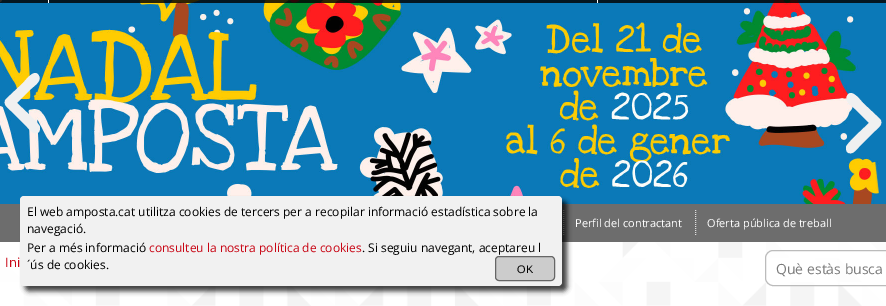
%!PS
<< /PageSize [886 306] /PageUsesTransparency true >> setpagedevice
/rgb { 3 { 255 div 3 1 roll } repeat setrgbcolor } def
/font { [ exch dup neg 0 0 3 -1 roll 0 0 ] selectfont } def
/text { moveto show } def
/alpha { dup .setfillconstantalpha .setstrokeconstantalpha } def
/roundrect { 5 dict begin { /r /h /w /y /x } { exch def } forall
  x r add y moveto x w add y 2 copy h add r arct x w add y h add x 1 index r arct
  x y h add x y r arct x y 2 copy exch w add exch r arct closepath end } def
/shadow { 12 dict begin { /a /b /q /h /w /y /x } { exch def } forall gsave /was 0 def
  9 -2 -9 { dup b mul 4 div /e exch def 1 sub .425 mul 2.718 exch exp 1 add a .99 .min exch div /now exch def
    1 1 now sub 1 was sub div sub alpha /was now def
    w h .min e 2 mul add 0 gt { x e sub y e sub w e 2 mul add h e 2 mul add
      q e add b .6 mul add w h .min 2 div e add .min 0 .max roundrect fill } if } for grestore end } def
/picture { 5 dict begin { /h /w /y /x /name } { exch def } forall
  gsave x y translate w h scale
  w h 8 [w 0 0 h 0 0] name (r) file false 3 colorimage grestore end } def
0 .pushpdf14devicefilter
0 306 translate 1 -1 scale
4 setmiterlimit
255 255 255 rgb
0 0 886 306 rectfill
(img_01.rgb) 0 242 886 64 picture
11 121 184 rgb
879 0 7 204 rectfill
(img_02.rgb) 0 0 879 204 picture
0.83 alpha
2 2 2 rgb
0 0 886 3 rectfill
1 alpha
255 255 255 rgb
48 0 1 3 rectfill
597 0 1 3 rectfill
240 240 240 rgb
6 99 moveto -4 5 2 9 5 12 rcurveto 16 16 rlineto 3 3 7 9 12 5 rcurveto 1 -2 1 -3 1 -5 rcurveto -1 -4 -19 -20 -23 -24 rcurveto 14 -14 rlineto 3 -3 11 -8 8 -13 rcurveto -4 -9 -14 5 -16 7 rcurveto closepath fill
880 119 moveto 4 5 -2 9 -5 12 rcurveto -16 16 rlineto -3 3 -7 9 -12 5 rcurveto -1 -2 -1 -3 -1 -5 rcurveto 1 -4 19 -20 23 -24 rcurveto -14 -14 rlineto -3 -3 -11 -8 -8 -13 rcurveto 4 -9 14 5 16 7 rcurveto closepath fill
109 109 109 rgb
0 204 886 38 rectfill
223 223 223 rgb
[1 1] 0 setdash
563.5 210 moveto 0 26 rlineto stroke
0.82 alpha
255 255 255 rgb
0 242 886 64 rectfill
1 alpha
0 0 0 rgb
25 201 542 90 4 2.5 0.75 shadow
241 241 241 rgb
20 196 542 90 4 roundrect fill
204 204 204 rgb
495.5 256.5 59 24 3.5 roundrect gsave fill grestore
102 102 102 rgb
[] 0 setdash
stroke
223 223 223 rgb
[1 1] 0 setdash
695.5 210 moveto 0 26 rlineto stroke
0.8 alpha
255 255 255 rgb
773 250.5 moveto 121.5 0 rlineto 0 35 rlineto -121.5 0 rlineto -4 0 -7.5 -3.5 -7.5 -7.5 rcurveto 0 -20 rlineto 0 -4 3.5 -7.5 7.5 -7.5 rcurveto closepath fill
1 alpha
187 187 187 rgb
[] 0 setdash
773 250.5 moveto 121.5 0 rlineto 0 35 rlineto -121.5 0 rlineto -4 0 -7.5 -3.5 -7.5 -7.5 rcurveto 0 -20 rlineto 0 -4 3.5 -7.5 7.5 -7.5 rcurveto closepath stroke
/OpenSans-Regular 12 font
0 0 0 rgb
(El web amposta.cat utilitza cookies de tercers per a recopilar informació estadística sobre la) 27 216 text
(navegació.) 27 233 text
(Per a més informació) 27 252 text
200 5 20 rgb
(consulteu la nostra política de cookies) 149 252 text
0 0 0 rgb
(. Si seguiu navegant, aceptareu l) 362 252 text
(´ús de cookies.) 27 269 text
/LiberationSans-Regular 11 font
(OK) 517 273 text
/OpenSans-Regular 11 font
255 255 255 rgb
(Perfil del contractant) 575 227 text
(Oferta pública de treball) 707 227 text
/OpenSans-Regular 13 font
200 5 20 rgb
(Ini) 5 267 text
/OpenSans-Regular 14 font
122 122 122 rgb
(Què estàs busca) 776 274 text
.poppdf14devicefilter showpage
